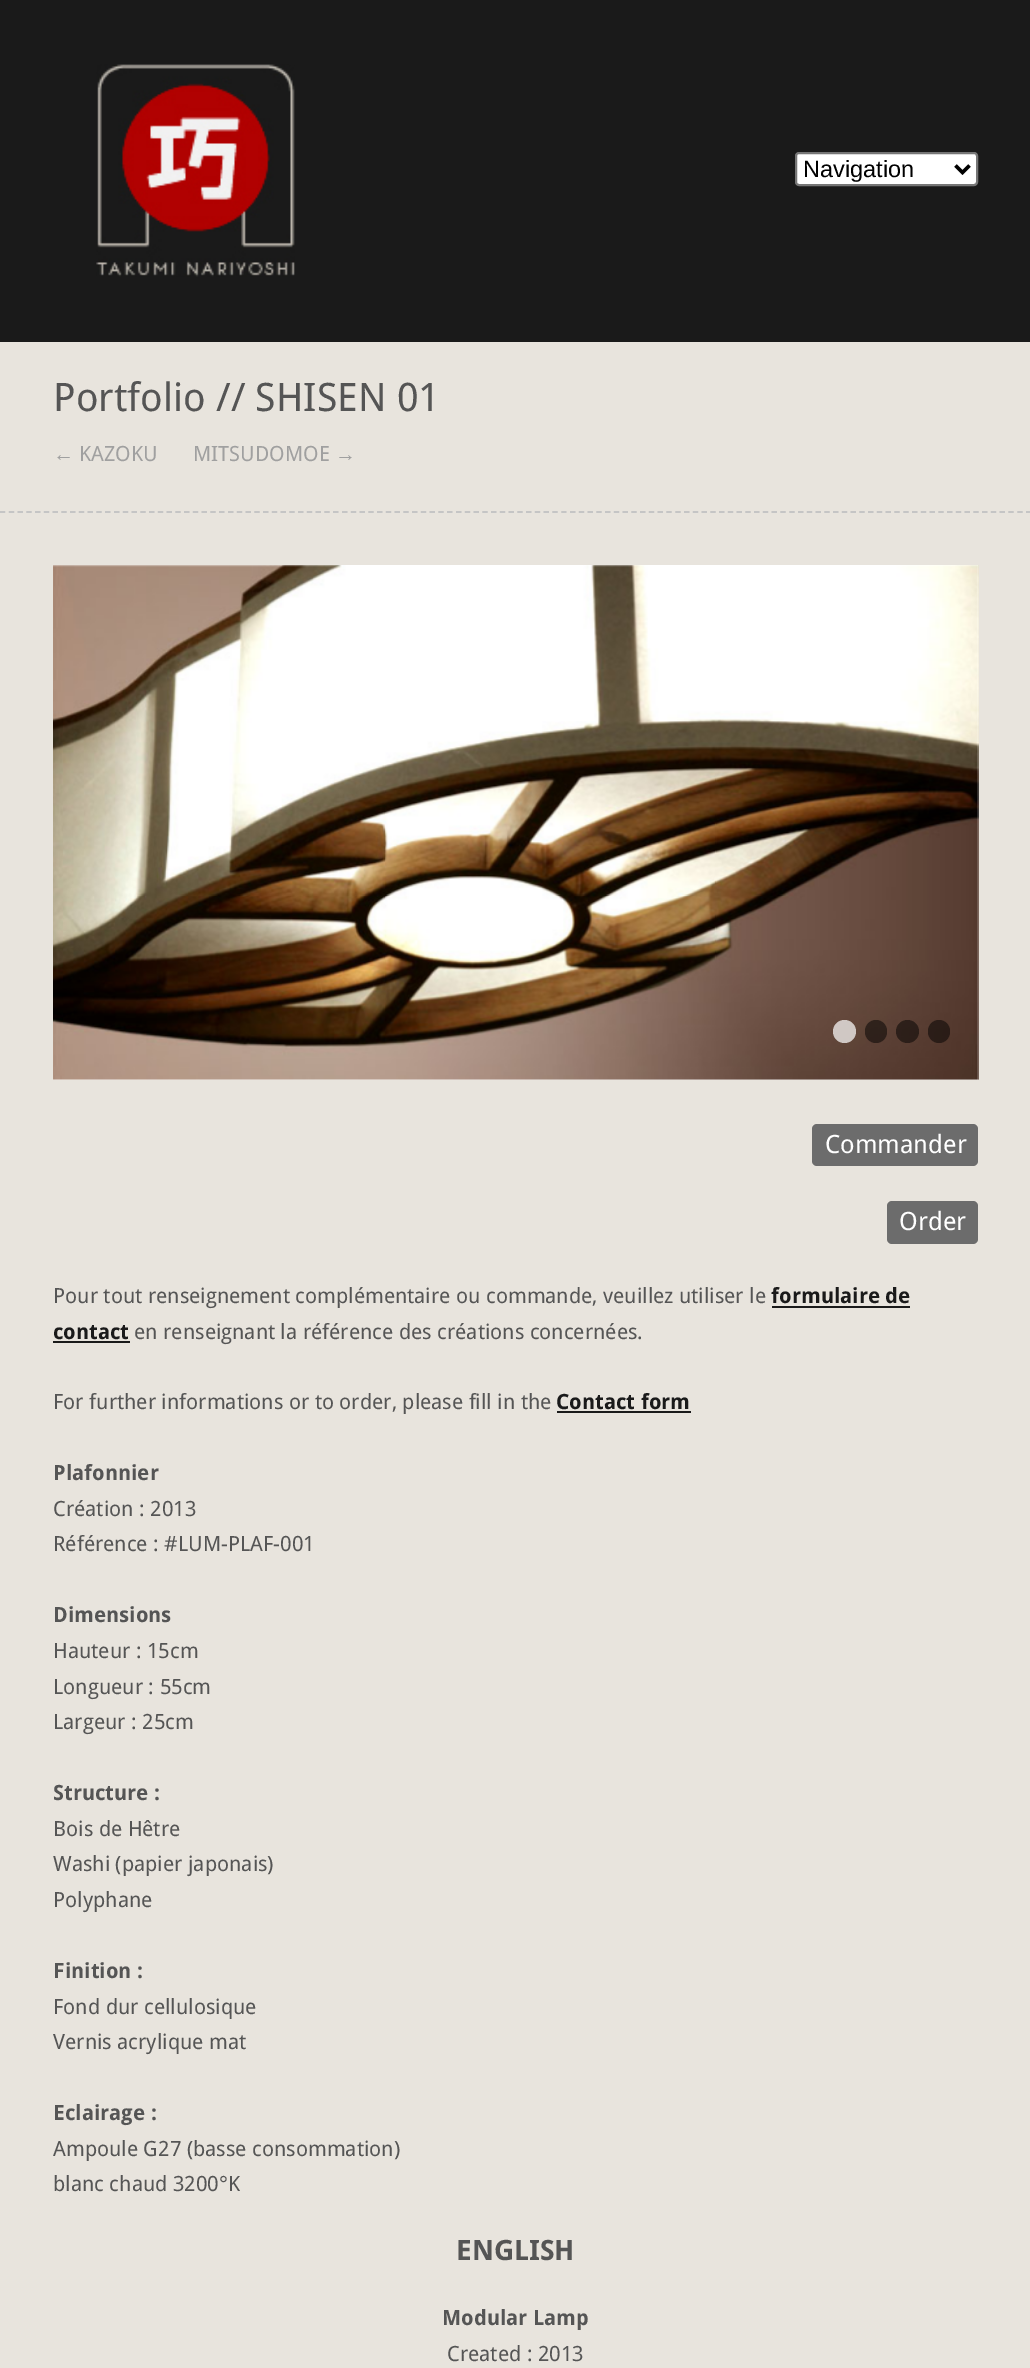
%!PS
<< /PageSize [1030 2368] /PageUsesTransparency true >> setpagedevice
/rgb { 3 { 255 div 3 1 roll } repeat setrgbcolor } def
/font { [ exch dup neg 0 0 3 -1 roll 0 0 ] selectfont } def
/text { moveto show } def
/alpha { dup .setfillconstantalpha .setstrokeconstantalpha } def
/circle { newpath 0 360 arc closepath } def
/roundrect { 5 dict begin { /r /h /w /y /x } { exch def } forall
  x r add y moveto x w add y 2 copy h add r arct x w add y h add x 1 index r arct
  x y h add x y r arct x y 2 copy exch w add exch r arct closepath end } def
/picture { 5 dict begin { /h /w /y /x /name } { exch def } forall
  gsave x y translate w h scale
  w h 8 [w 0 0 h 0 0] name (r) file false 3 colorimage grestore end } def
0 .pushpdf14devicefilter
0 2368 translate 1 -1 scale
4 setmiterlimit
232 228 221 rgb
0 0 1030 2368 rectfill
26 26 26 rgb
0 0 1030 342 rectfill
(img_01.rgb) 96 64 199 213 picture
255 255 255 rgb
796 153 181 32 3 roundrect gsave fill grestore
118 118 118 rgb
2 setlinewidth
stroke
0 0 0 rgb
3.5 setlinewidth
955.5 165.5 moveto 7 7 rlineto 7 -7 rlineto stroke
197 197 197 rgb
1.8 setlinewidth
[5.25 3.52] 0 setdash
0 512 moveto 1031 0 rlineto stroke
255 255 255 rgb
53 565 925 515 rectfill
(img_02.rgb) 53 565 926 515 picture
0.7 alpha
844.5 1031.5 11.5 circle fill
0.5 alpha
0 0 0 rgb
865 1020 22 23 11 roundrect fill
907.5 1031.5 11.5 circle fill
928 1020 22 23 11 roundrect fill
1 alpha
108 108 108 rgb
812 1124 166 42 5 roundrect fill
887 1201 91 43 5 roundrect fill
26 26 26 rgb
772 1306 138 2 rectfill
53 1341 77 2 rectfill
557 1411 134 2 rectfill
/LiberationSans-Regular 23.5 font
0 0 0 rgb
(Navigation) 803 177 text
/DroidSans-Regular 39.25 font
85 85 85 rgb
(Portfolio // SHISEN 01) 53 411 text
/LiberationSans-Regular 21 font
160 160 160 rgb
(←) 53 461 text
/DroidSans-Regular 21 font
(KAZOKU) 79 461 text
(MITSUDOMOE) 193 461 text
/LiberationSans-Regular 21 font
(→) 335 461 text
/DroidSans-Regular 25.25 font
255 255 255 rgb
(Commander) 825 1153 text
(Order) 899 1230 text
/DroidSans-Regular 21 font
85 85 85 rgb
(Pour tout renseignement complémentaire ou commande, veuillez utiliser le) 53 1303 text
/DroidSans-Bold 21 font
26 26 26 rgb
(formulaire de) 771 1303 text
(contact) 53 1339 text
/DroidSans-Regular 21 font
85 85 85 rgb
(en renseignant la référence des créations concernées.) 134 1339 text
(For further informations or to order, please fill in the) 53 1409 text
/DroidSans-Bold 21 font
26 26 26 rgb
(Contact form) 556 1409 text
85 85 85 rgb
(Plafonnier) 53 1480 text
/DroidSans-Regular 21 font
(Création : 2013) 53 1516 text
(Référence : #LUM-PLAF-001) 53 1551 text
/DroidSans-Bold 21 font
(Dimensions) 53 1622 text
/DroidSans-Regular 21 font
(Hauteur : 15cm) 53 1658 text
(Longueur : 55cm) 53 1694 text
(Largeur : 25cm) 53 1729 text
/DroidSans-Bold 21 font
(Structure :) 53 1800 text
/DroidSans-Regular 21 font
(Bois de Hêtre) 53 1836 text
(Washi \(papier japonais\)) 53 1871 text
(Polyphane) 53 1907 text
/DroidSans-Bold 21 font
(Finition :) 53 1978 text
/DroidSans-Regular 21 font
(Fond dur cellulosique) 53 2014 text
(Vernis acrylique mat) 53 2049 text
/DroidSans-Bold 21 font
(Eclairage :) 53 2120 text
/DroidSans-Regular 21 font
(Ampoule G27 \(basse consommation\)) 53 2156 text
(blanc chaud 3200°K) 53 2191 text
/DroidSans-Bold 28 font
(ENGLISH) 456 2260 text
/DroidSans-Bold 21 font
(Modular Lamp) 442 2325 text
/DroidSans-Regular 21 font
(Created : 2013) 447 2361 text
.poppdf14devicefilter showpage
